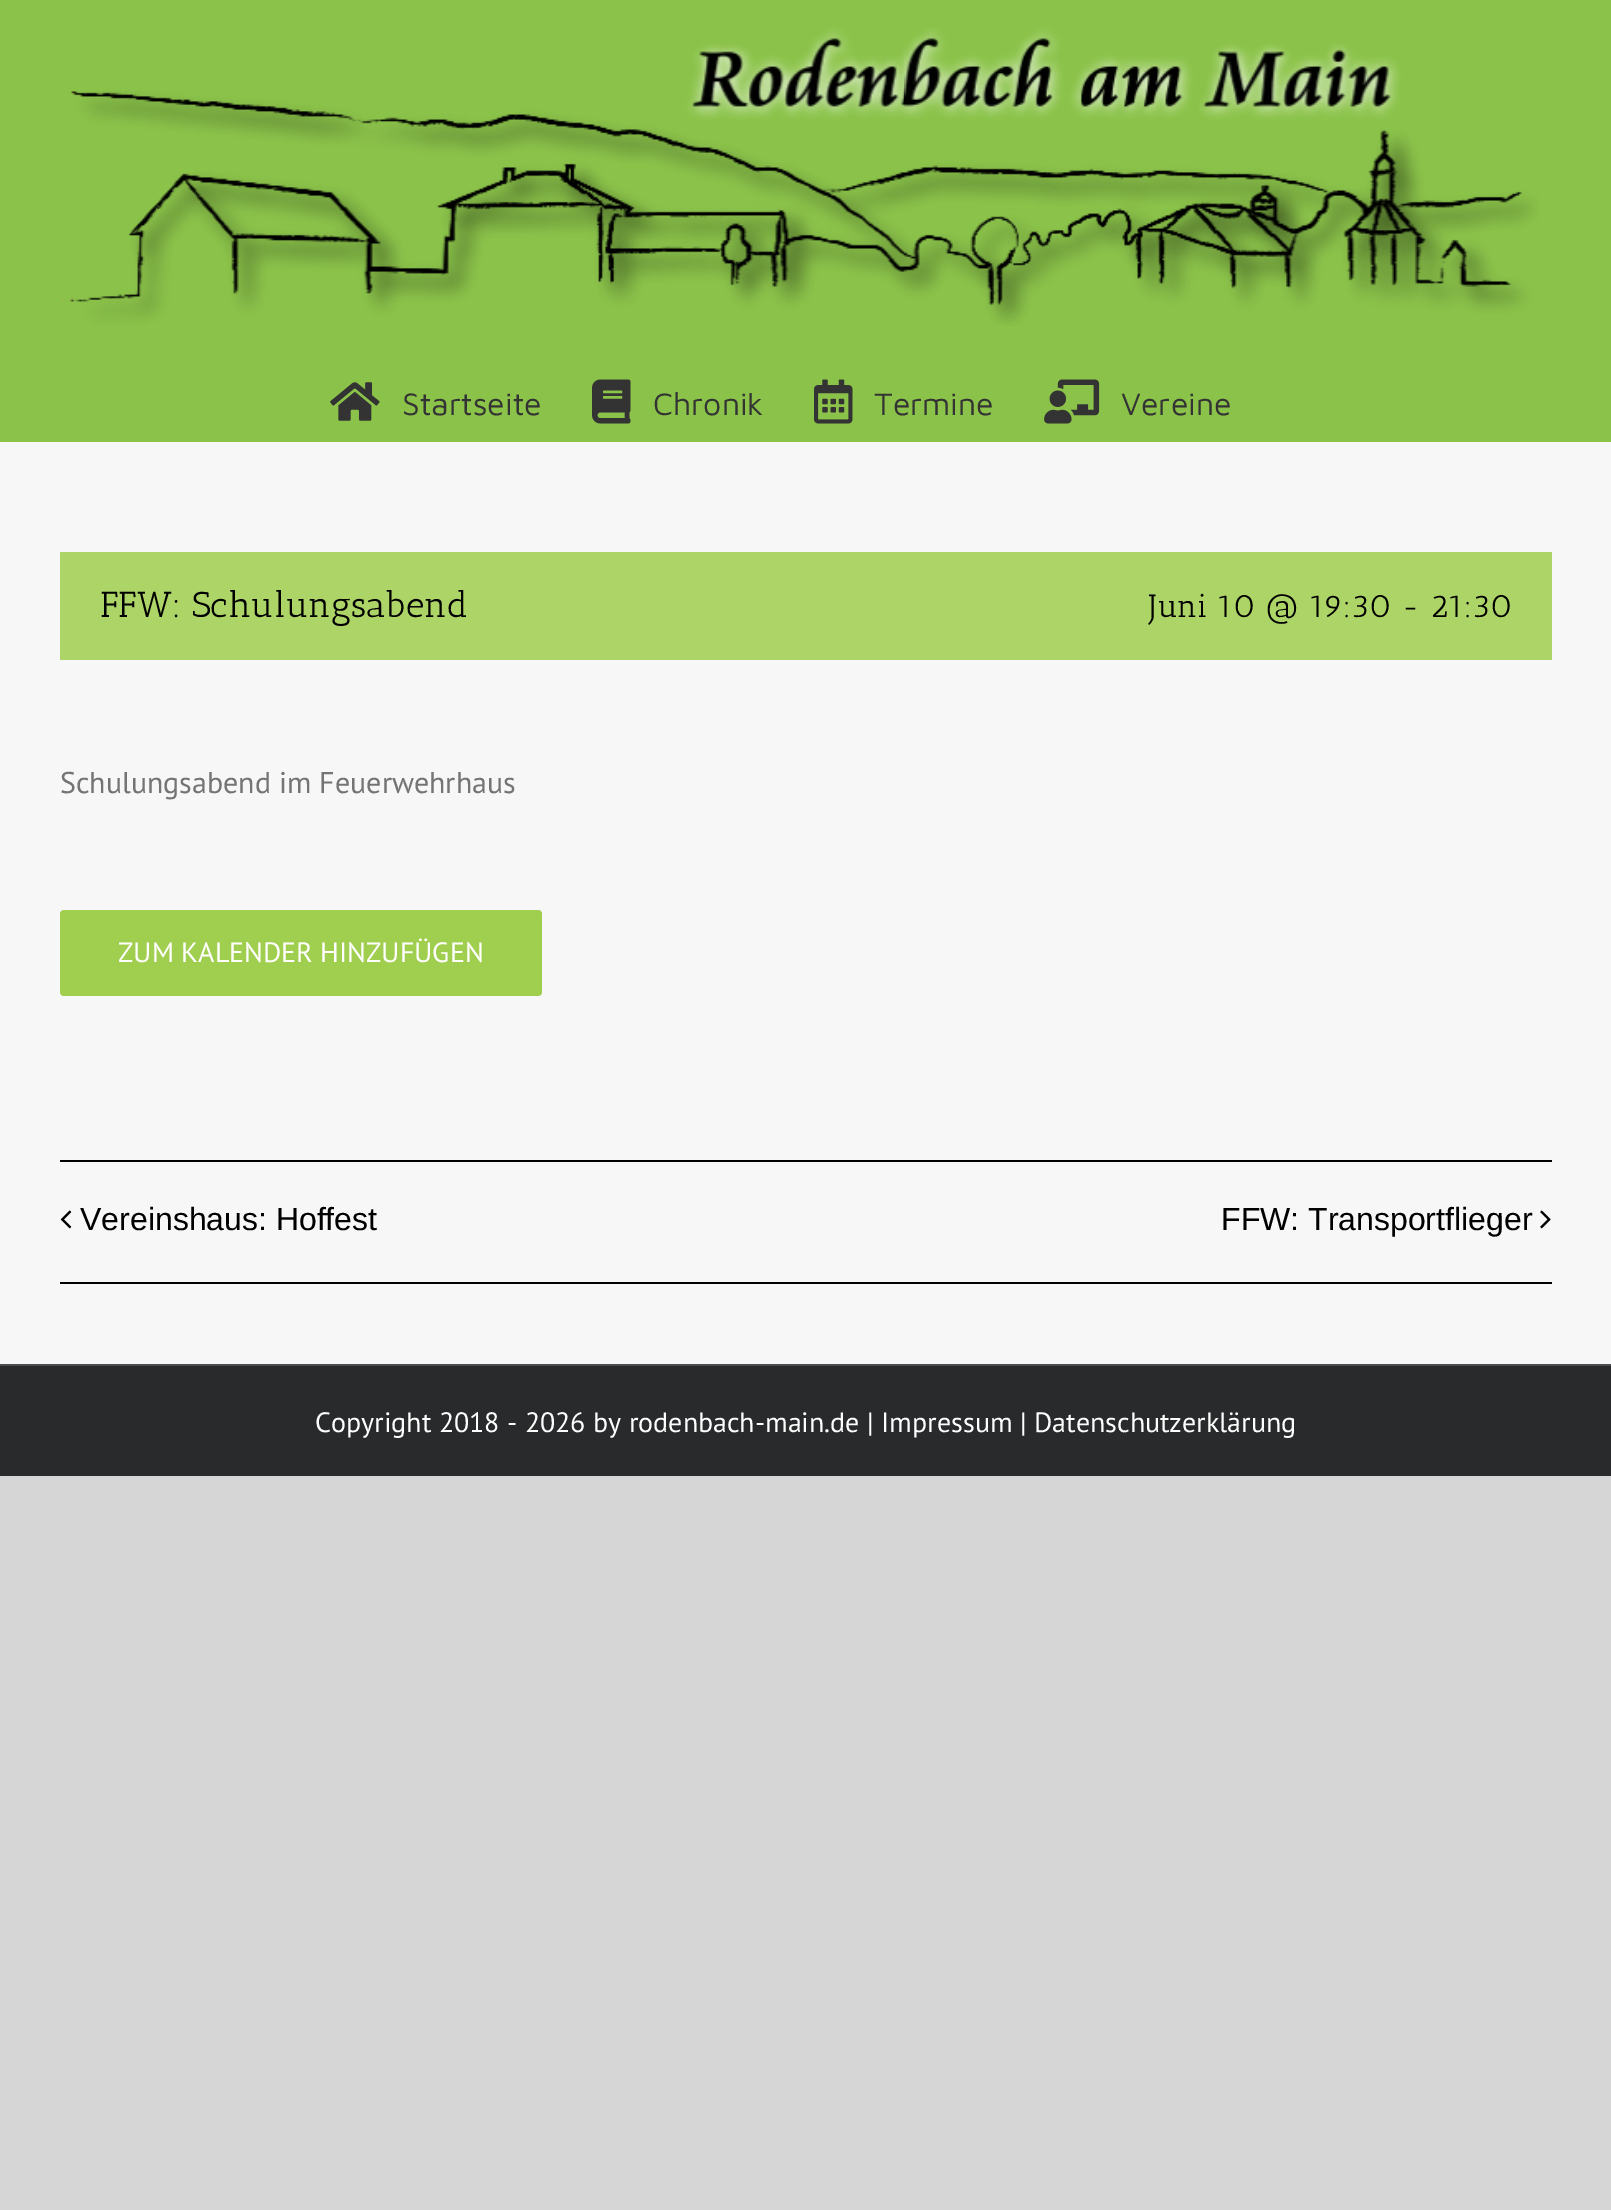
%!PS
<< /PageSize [1611 2210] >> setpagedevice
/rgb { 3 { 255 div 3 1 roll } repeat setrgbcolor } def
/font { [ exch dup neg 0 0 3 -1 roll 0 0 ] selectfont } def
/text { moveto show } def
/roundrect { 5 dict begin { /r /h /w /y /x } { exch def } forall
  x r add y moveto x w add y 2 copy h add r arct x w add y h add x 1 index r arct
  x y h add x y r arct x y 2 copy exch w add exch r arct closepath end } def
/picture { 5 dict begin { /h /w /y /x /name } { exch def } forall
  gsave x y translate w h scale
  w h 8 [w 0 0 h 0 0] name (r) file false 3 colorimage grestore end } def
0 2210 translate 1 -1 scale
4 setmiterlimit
215 214 214 rgb
0 0 1611 2210 rectfill
247 247 247 rgb
0 442 1611 922 rectfill
139 195 74 rgb
0 0 1611 2 rectfill
0 2 1611 440 rectfill
(img_01.rgb) 61 27 1477 299 picture
(img_02.rgb) 330 382 50 39 picture
(img_03.rgb) 592 379 39 45 picture
(img_04.rgb) 814 379 39 45 picture
(img_05.rgb) 1044 379 56 45 picture
173 212 103 rgb
60 552 1492 108 rectfill
160 206 78 rgb
60 910 482 86 4 roundrect fill
0 0 0 rgb
60 1160 1492 2 rectfill
60 1282 1492 2 rectfill
(img_06.rgb) 60 1210 12 19 picture
(img_07.rgb) 1540 1210 11 19 picture
40 42 43 rgb
0 1366 1611 110 rectfill
75 76 77 rgb
0 1364 1611 2 rectfill
/MavenPro-Regular 32 font
51 51 51 rgb
(Startseite) 402 415 text
(Chronik) 653 415 text
(Termine) 874 415 text
(Vereine) 1121 415 text
/AnticSlab-Regular 36 font
0 0 0 rgb
(FFW: Schulungsabend) 100 617 text
/AnticSlab-Regular 32 font
(Juni 10 @ 19:30 - 21:30) 1149 617 text
/PTSans-Regular 30 font
116 116 116 rgb
(Schulungsabend im Feuerwehrhaus) 60 793 text
/PTSans-Regular 28 font
255 255 255 rgb
(ZUM KALENDER HINZUFÜGEN) 118 962 text
/LiberationSans-Regular 32 font
0 0 0 rgb
(Vereinshaus: Hoffest) 80 1230 text
(FFW: Transportflieger) 1221 1230 text
/PTSans-Regular 28 font
255 255 255 rgb
(Copyright 2018 - 2026 by rodenbach-main.de | Impressum | Datenschutzerklärung) 315 1432 text
showpage
